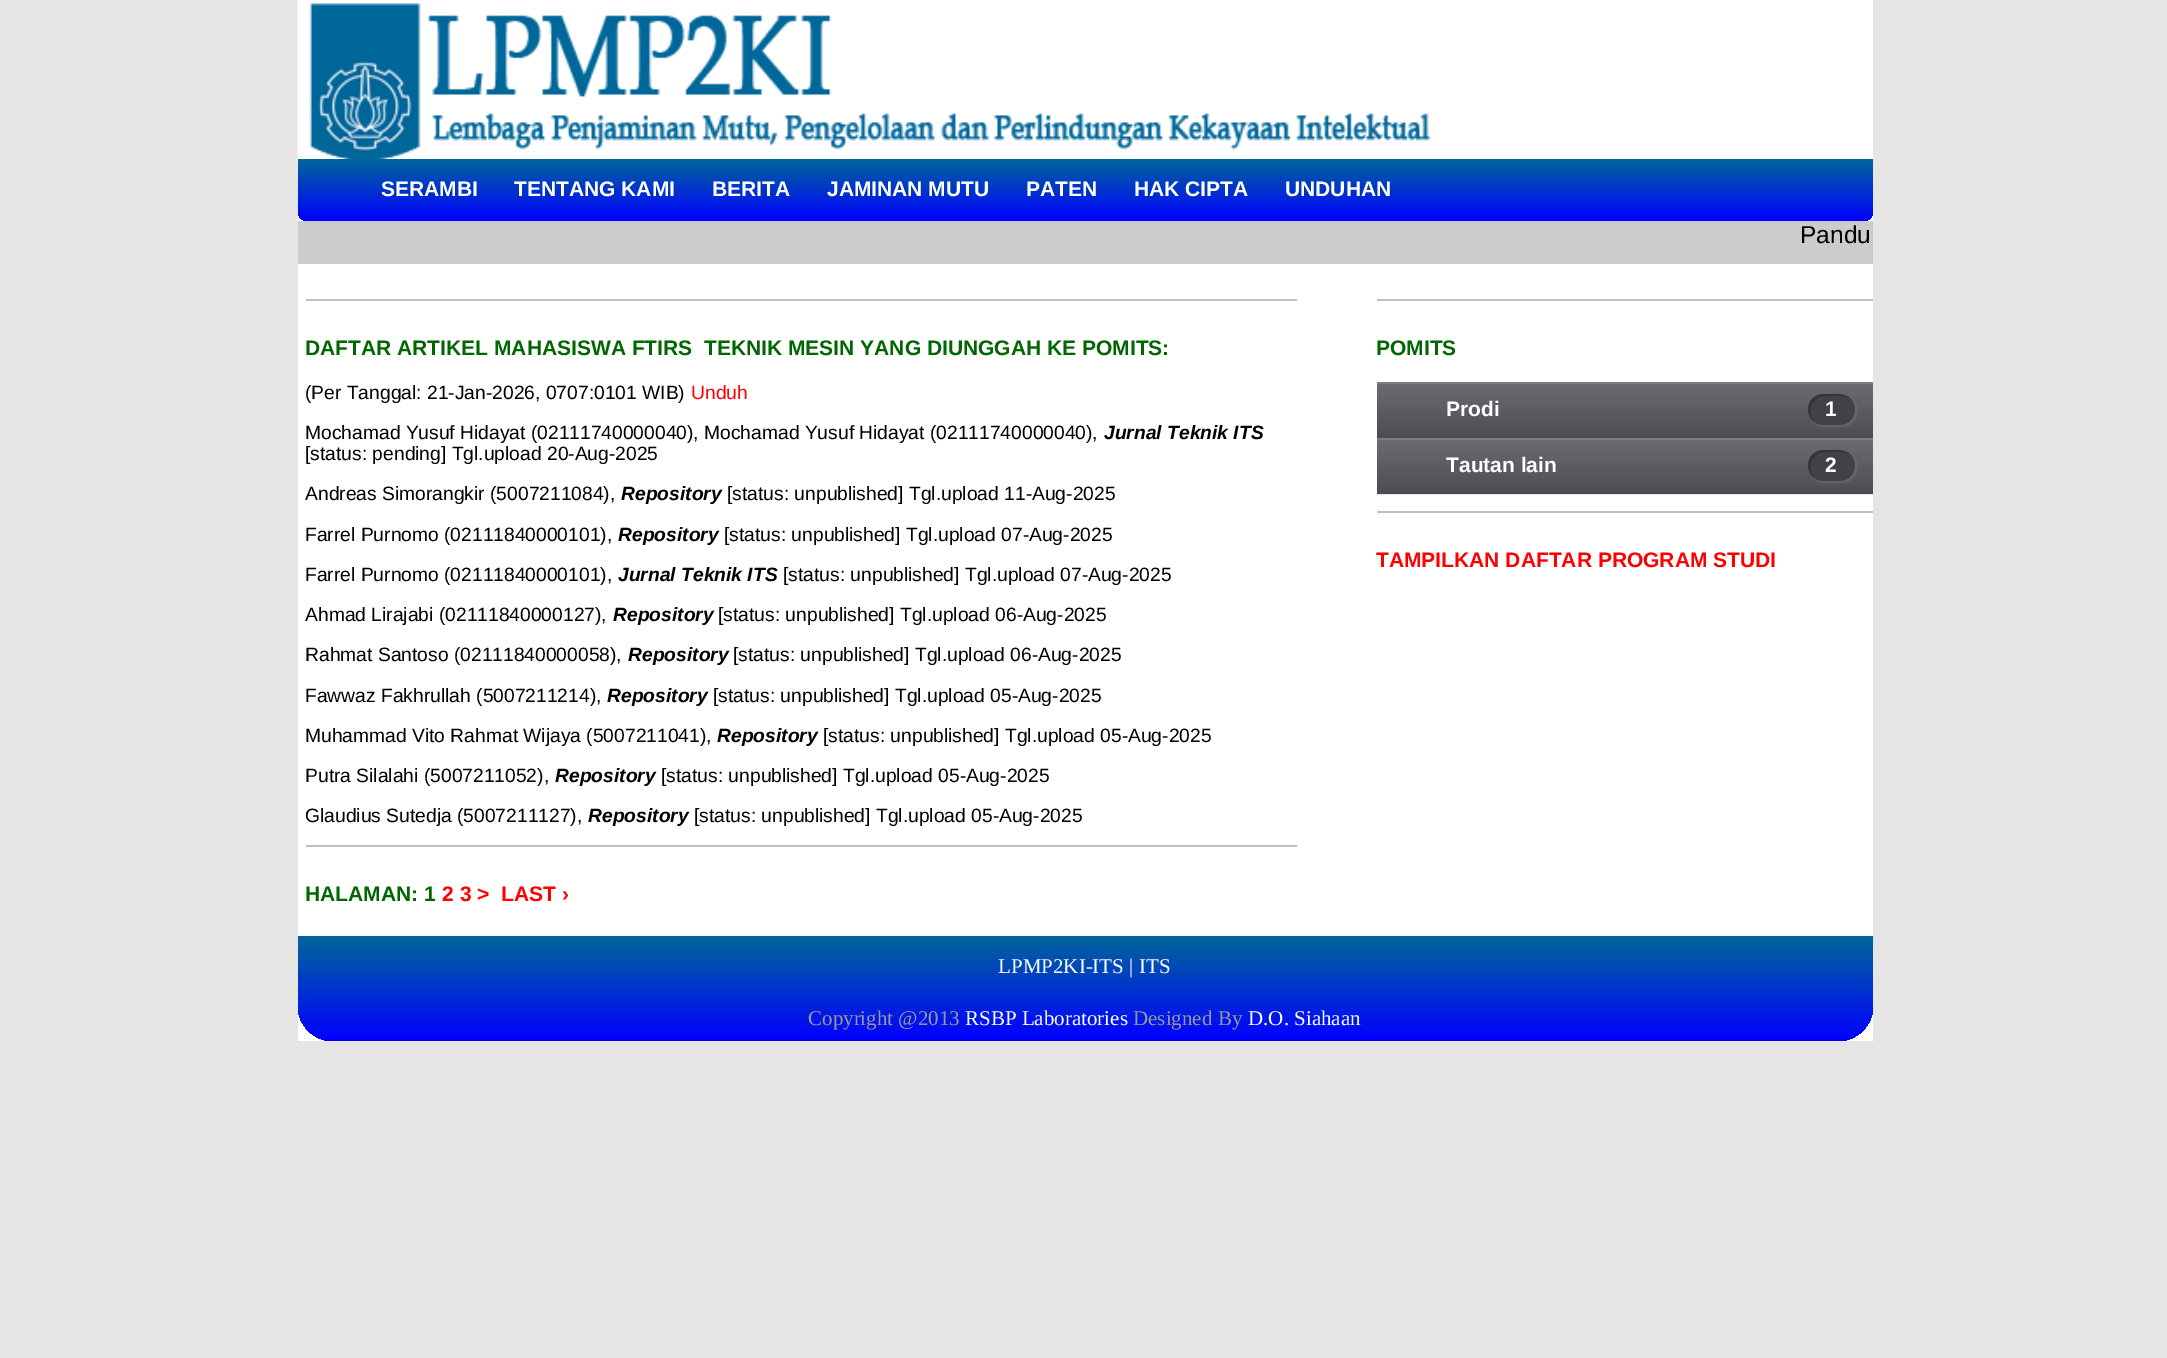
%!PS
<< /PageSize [2167 1358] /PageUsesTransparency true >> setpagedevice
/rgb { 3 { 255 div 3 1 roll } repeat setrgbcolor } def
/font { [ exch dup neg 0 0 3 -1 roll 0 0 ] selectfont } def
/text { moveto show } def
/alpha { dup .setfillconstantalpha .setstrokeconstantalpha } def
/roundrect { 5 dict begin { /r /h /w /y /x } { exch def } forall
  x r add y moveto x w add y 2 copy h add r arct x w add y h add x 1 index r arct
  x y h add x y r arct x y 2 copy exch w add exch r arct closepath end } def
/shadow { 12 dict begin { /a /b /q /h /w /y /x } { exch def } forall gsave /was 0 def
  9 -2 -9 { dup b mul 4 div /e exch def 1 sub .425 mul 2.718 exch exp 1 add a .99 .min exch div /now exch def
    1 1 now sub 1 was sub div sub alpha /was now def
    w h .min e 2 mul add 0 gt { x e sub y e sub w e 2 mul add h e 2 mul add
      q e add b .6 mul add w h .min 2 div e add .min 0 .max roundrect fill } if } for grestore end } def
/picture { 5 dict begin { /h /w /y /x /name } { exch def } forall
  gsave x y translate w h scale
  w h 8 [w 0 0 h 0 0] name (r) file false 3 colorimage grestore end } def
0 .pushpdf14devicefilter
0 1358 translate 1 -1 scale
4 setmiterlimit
229 229 229 rgb
0 0 2167 1358 rectfill
255 255 255 rgb
298 0 1575 1041 rectfill
(img_01.rgb) 297 0 1134 163 picture
gsave 298 159 moveto 1575 0 rlineto 0 53 rlineto 0 5 -4 9 -9 9 rcurveto -1557 0 rlineto -5 0 -9 -4 -9 -9 rcurveto closepath clip newpath
<< /ShadingType 2 /ColorSpace /DeviceRGB /Coords [298 159 298 221] /Extend [true true] /Function << /FunctionType 2 /Domain [0 1] /C0 [0 0.404 0.604] /C1 [0 0 1] /N 1 >> >> shfill grestore
204 204 204 rgb
298 221 1575 43 rectfill
192 192 192 rgb
306 299 991 2 rectfill
306 845 991 2 rectfill
1377 299 496 2 rectfill
gsave 1377 384 moveto 496 0 rlineto 0 54 rlineto -496 0 rlineto closepath clip newpath
<< /ShadingType 2 /ColorSpace /DeviceRGB /Coords [1625 381 1625 438] /Extend [true true] /Function << /FunctionType 2 /Domain [0 1] /C0 [0.424 0.431 0.455] /C1 [0.294 0.302 0.318] /N 1 >> >> shfill grestore
122 124 129 rgb
1377 382 496 2 rectfill
255 255 255 rgb
1810 396 47 31 15.5 1 0.1 shadow
64 66 71 rgb
1808 394 47 31 15.5 roundrect fill
0.2 alpha
0 0 0 rgb
1825 396 moveto 8 0 20 -2 27 4 rcurveto -6 -7 -15 -6 -23 -6 rcurveto -4 0 -8 0 -12 1 rcurveto -10 5 -12 19 -3 27 rcurveto -8 -10 -2 -26 11 -26 rcurveto closepath fill
1 alpha
230 230 230 rgb
1377 439 moveto 0 56 rlineto 496 0 rlineto 0 -56 rlineto -1 0 rlineto 0 55 rlineto -495 0 rlineto closepath fill
gsave 1377 440 moveto 496 0 rlineto 0 54 rlineto -496 0 rlineto closepath clip newpath
<< /ShadingType 2 /ColorSpace /DeviceRGB /Coords [1625 437 1625 494] /Extend [true true] /Function << /FunctionType 2 /Domain [0 1] /C0 [0.424 0.431 0.455] /C1 [0.294 0.302 0.318] /N 1 >> >> shfill grestore
122 124 129 rgb
1377 438 496 2 rectfill
255 255 255 rgb
1810 452 47 31 15.5 1 0.1 shadow
64 66 71 rgb
1808 450 47 31 15.5 roundrect fill
0.2 alpha
0 0 0 rgb
1825 452 moveto 8 0 20 -2 27 4 rcurveto -6 -7 -15 -6 -23 -6 rcurveto -4 0 -8 0 -12 1 rcurveto -10 5 -12 19 -3 27 rcurveto -8 -10 -2 -26 11 -26 rcurveto closepath fill
1 alpha
192 192 192 rgb
1377 511 496 2 rectfill
gsave 298 936 moveto 1575 0 rlineto 0 70 rlineto 0 19.5 -15.5 35 -35 35 rcurveto -1505 0 rlineto -19.5 0 -35 -15.5 -35 -35 rcurveto closepath clip newpath
<< /ShadingType 2 /ColorSpace /DeviceRGB /Coords [298 936 298 1041] /Extend [true true] /Function << /FunctionType 2 /Domain [0 1] /C0 [0 0.404 0.604] /C1 [0 0 1] /N 1 >> >> shfill grestore
/LiberationSans-Bold 21 font
255 255 255 rgb
(SERAMBI) 381 196 text
(TENTANG KAMI) 514 196 text
(BERITA) 712 196 text
(JAMINAN MUTU) 827 196 text
(PATEN) 1026 196 text
(HAK CIPTA) 1134 196 text
(UNDUHAN) 1285 196 text
/LiberationSans-Regular 24.5 font
0 0 0 rgb
(Pandu) 1800 243 text
/LiberationSans-Bold 21 font
0 102 0 rgb
(DAFTAR ARTIKEL MAHASISWA FTIRS  TEKNIK MESIN YANG DIUNGGAH KE POMITS:) 305 355 text
/LiberationSans-Regular 19.25 font
0 0 0 rgb
(\(Per Tanggal: 21-Jan-2026, 0707:0101 WIB\)) 305 399 text
255 0 0 rgb
(Unduh) 691 399 text
0 0 0 rgb
(Mochamad Yusuf Hidayat \(02111740000040\), Mochamad Yusuf Hidayat \(02111740000040\),) 305 439 text
/LiberationSans-BoldItalic 19.25 font
(Jurnal Teknik ITS) 1104 439 text
/LiberationSans-Regular 19.25 font
([status: pending] Tgl.upload 20-Aug-2025) 305 460 text
(Andreas Simorangkir \(5007211084\),) 305 500 text
/LiberationSans-BoldItalic 19.25 font
(Repository) 621 500 text
/LiberationSans-Regular 19.25 font
([status: unpublished] Tgl.upload 11-Aug-2025) 727 500 text
(Farrel Purnomo \(02111840000101\),) 305 541 text
/LiberationSans-BoldItalic 19.25 font
(Repository) 618 541 text
/LiberationSans-Regular 19.25 font
([status: unpublished] Tgl.upload 07-Aug-2025) 724 541 text
(Farrel Purnomo \(02111840000101\),) 305 581 text
/LiberationSans-BoldItalic 19.25 font
(Jurnal Teknik ITS) 618 581 text
/LiberationSans-Regular 19.25 font
([status: unpublished] Tgl.upload 07-Aug-2025) 783 581 text
(Ahmad Lirajabi \(02111840000127\),) 305 621 text
/LiberationSans-BoldItalic 19.25 font
(Repository) 613 621 text
/LiberationSans-Regular 19.25 font
([status: unpublished] Tgl.upload 06-Aug-2025) 718 621 text
(Rahmat Santoso \(02111840000058\),) 305 661 text
/LiberationSans-BoldItalic 19.25 font
(Repository) 628 661 text
/LiberationSans-Regular 19.25 font
([status: unpublished] Tgl.upload 06-Aug-2025) 733 661 text
(Fawwaz Fakhrullah \(5007211214\),) 305 702 text
/LiberationSans-BoldItalic 19.25 font
(Repository) 607 702 text
/LiberationSans-Regular 19.25 font
([status: unpublished] Tgl.upload 05-Aug-2025) 713 702 text
(Muhammad Vito Rahmat Wijaya \(5007211041\),) 305 742 text
/LiberationSans-BoldItalic 19.25 font
(Repository) 717 742 text
/LiberationSans-Regular 19.25 font
([status: unpublished] Tgl.upload 05-Aug-2025) 823 742 text
(Putra Silalahi \(5007211052\),) 305 782 text
/LiberationSans-BoldItalic 19.25 font
(Repository) 555 782 text
/LiberationSans-Regular 19.25 font
([status: unpublished] Tgl.upload 05-Aug-2025) 661 782 text
(Glaudius Sutedja \(5007211127\),) 305 822 text
/LiberationSans-BoldItalic 19.25 font
(Repository) 588 822 text
/LiberationSans-Regular 19.25 font
([status: unpublished] Tgl.upload 05-Aug-2025) 694 822 text
/LiberationSans-Bold 21 font
0 102 0 rgb
(HALAMAN: 1) 305 901 text
255 0 0 rgb
(2 3 >) 442 901 text
(LAST ›) 501 901 text
0 102 0 rgb
(POMITS) 1376 355 text
255 255 255 rgb
(Prodi) 1446 416 text
(1) 1825 416 text
(Tautan lain) 1446 472 text
(2) 1825 472 text
255 0 0 rgb
(TAMPILKAN DAFTAR PROGRAM STUDI) 1376 567 text
/LiberationSerif-Regular 21 font
255 255 255 rgb
(LPMP2KI-ITS | ITS) 998 973 text
153 153 153 rgb
(Copyright @2013) 808 1025 text
255 255 255 rgb
(RSBP Laboratories) 965 1025 text
153 153 153 rgb
(Designed By) 1133 1025 text
255 255 255 rgb
(D.O. Siahaan) 1248 1025 text
.poppdf14devicefilter showpage
